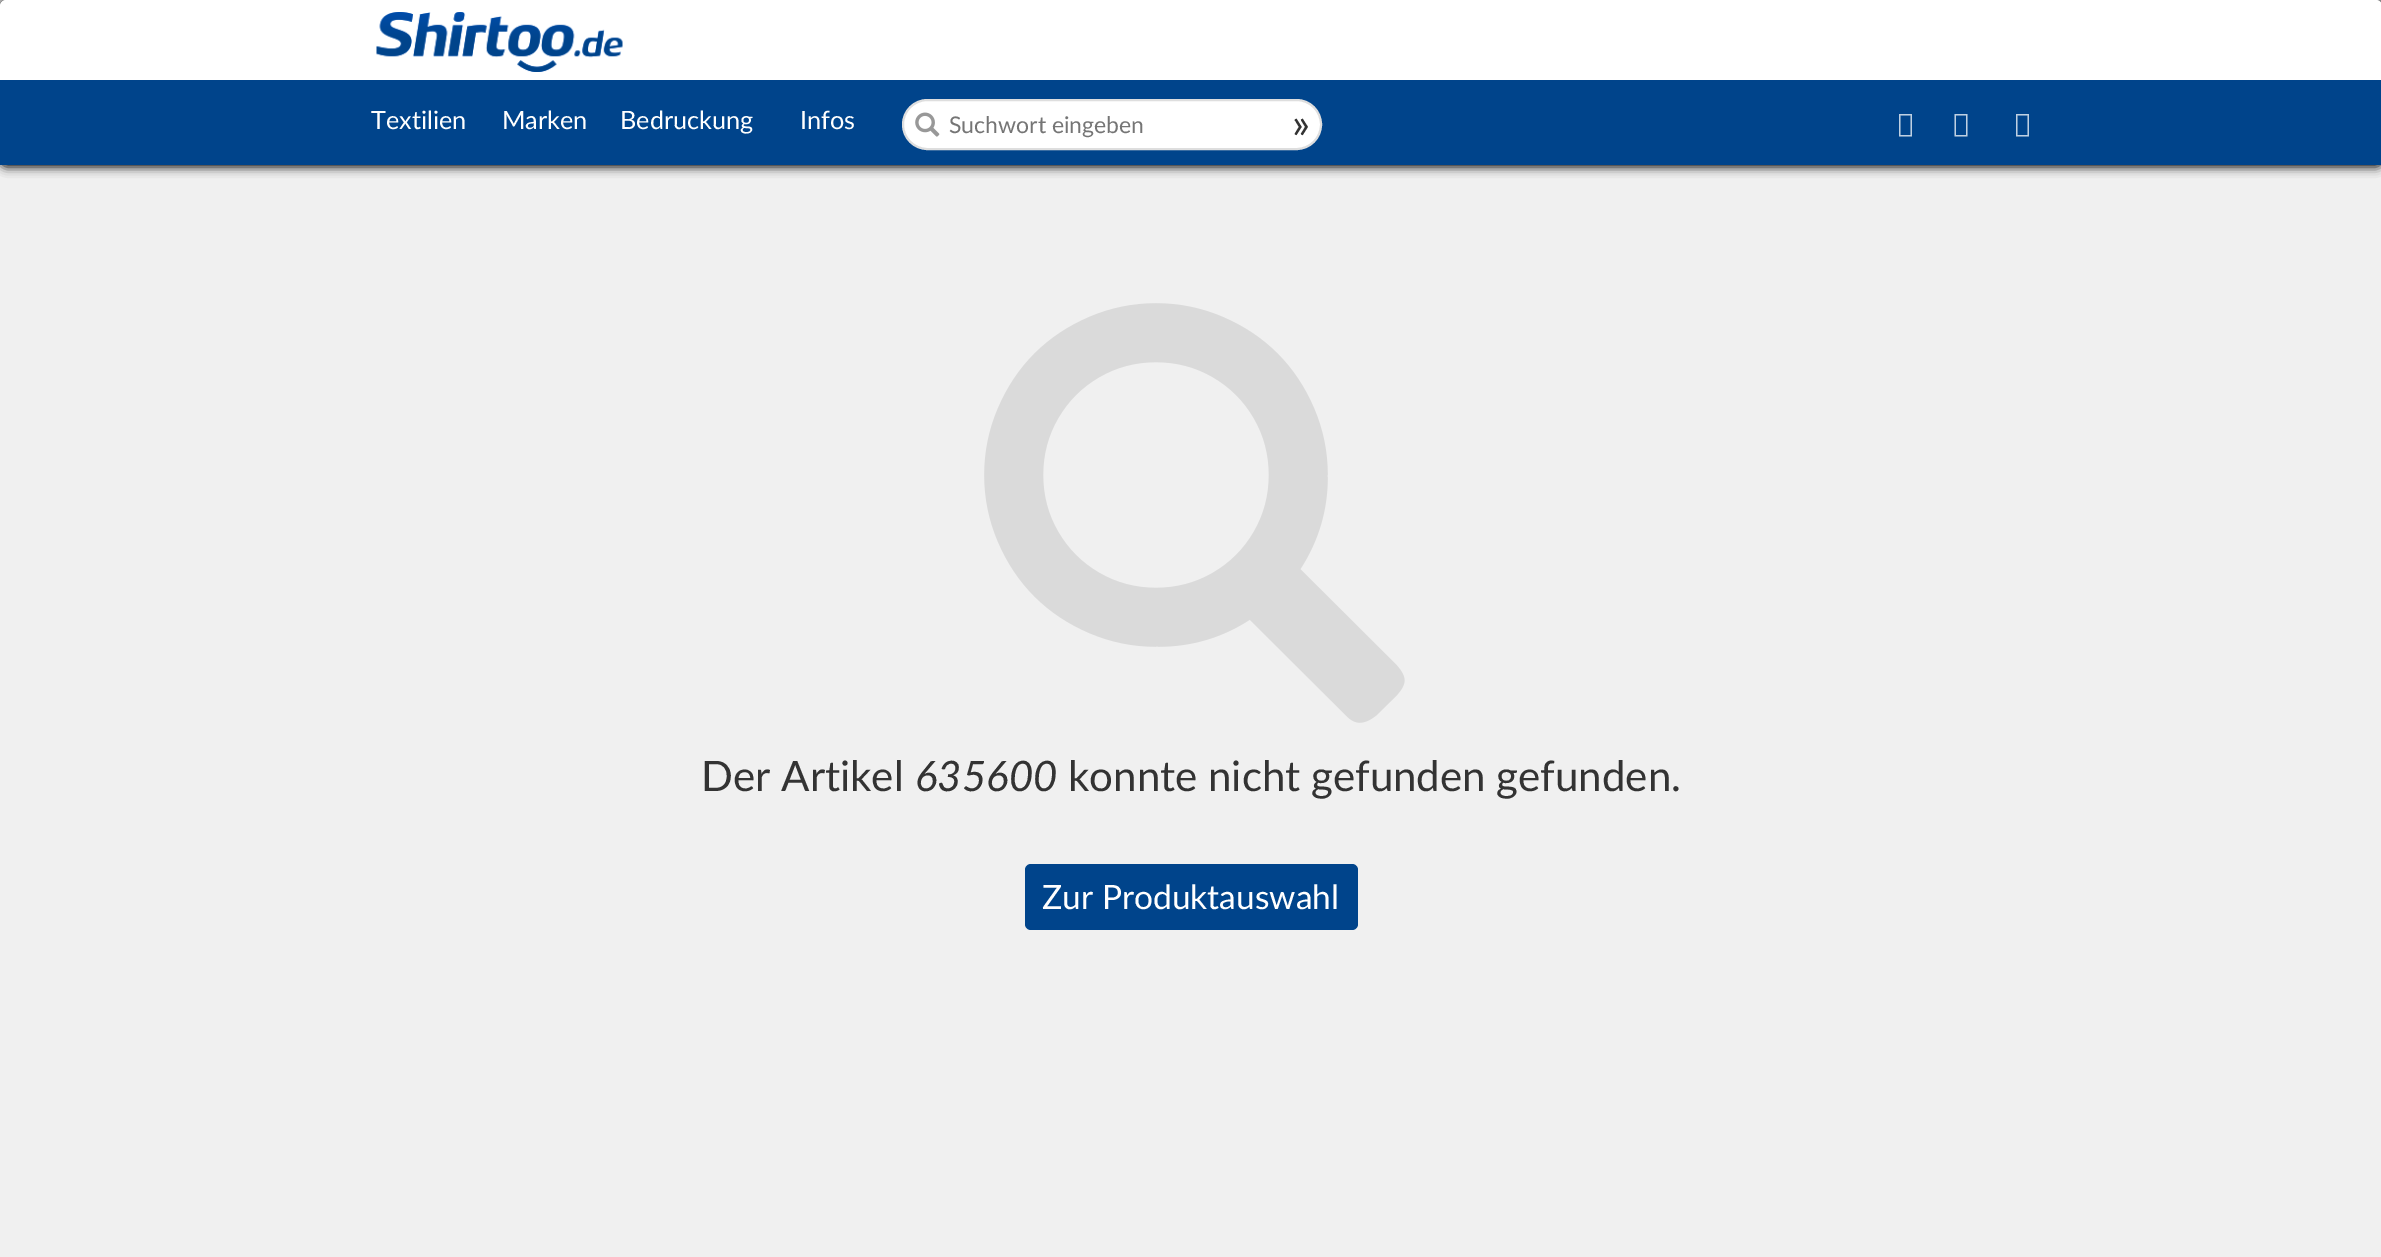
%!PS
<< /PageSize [2381 1257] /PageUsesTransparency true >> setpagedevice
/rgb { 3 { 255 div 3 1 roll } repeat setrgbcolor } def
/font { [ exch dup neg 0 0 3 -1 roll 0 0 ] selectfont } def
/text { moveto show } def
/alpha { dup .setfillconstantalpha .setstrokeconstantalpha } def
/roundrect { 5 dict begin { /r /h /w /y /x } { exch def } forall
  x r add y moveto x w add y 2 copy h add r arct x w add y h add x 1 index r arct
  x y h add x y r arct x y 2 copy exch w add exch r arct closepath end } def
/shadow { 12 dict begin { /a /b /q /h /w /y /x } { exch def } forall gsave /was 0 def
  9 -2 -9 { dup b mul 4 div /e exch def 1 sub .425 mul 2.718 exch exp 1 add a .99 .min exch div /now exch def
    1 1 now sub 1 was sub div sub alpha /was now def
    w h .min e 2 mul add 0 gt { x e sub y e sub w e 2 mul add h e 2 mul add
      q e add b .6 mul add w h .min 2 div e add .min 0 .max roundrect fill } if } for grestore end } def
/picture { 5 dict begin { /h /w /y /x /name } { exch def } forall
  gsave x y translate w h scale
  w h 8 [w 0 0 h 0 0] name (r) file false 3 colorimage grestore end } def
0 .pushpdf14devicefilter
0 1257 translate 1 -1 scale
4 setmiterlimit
240 240 240 rgb
0 0 2381 1257 rectfill
0 0 0 rgb
-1 -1 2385 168 8 5 1 shadow
255 255 255 rgb
0 0 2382 165 6 roundrect fill
(img_01.rgb) 376 12 247 60 picture
0 68 139 rgb
0 80 2381 85 rectfill
255 255 255 rgb
903 100 418 49 24.5 roundrect gsave fill grestore
222 222 222 rgb
2 setlinewidth
stroke
(img_02.rgb) 915 112 25 25 picture
191 208 226 rgb
1899 136.5 moveto 0 -22.5 rlineto 13 0 rlineto 0 22.5 rlineto closepath 1900.5 135 moveto 10 0 rlineto 0 -19.5 rlineto -10 0 rlineto closepath fill
1954.5 136.5 moveto 0 -22.5 rlineto 13 0 rlineto 0 22.5 rlineto closepath 1956 135 moveto 10 0 rlineto 0 -19.5 rlineto -10 0 rlineto closepath fill
2016 136.5 moveto 0 -22.5 rlineto 13 0 rlineto 0 22.5 rlineto closepath 2017.5 135 moveto 10 0 rlineto 0 -19.5 rlineto -10 0 rlineto closepath fill
(img_03.rgb) 984 303 421 420 picture
0 68 139 rgb
1025 864 333 66 6 roundrect fill
/Lato-Regular 25.25 font
255 255 255 rgb
(Textilien) 371 129 text
(Marken) 502 129 text
(Bedruckung) 620 129 text
(Infos) 800 129 text
/Lato-Regular 23 font
117 117 117 rgb
(Suchwort eingeben) 949 133 text
/Lato-Regular 42 font
51 51 51 rgb
(») 1292 138 text
(Der Artikel) 701 791 text
/Lato-Italic 42 font
(635600) 915 791 text
/Lato-Regular 42 font
(konnte nicht gefunden gefunden.) 1068 791 text
/Lato-Regular 33.5 font
255 255 255 rgb
(Zur Produktauswahl) 1042 909 text
.poppdf14devicefilter showpage
